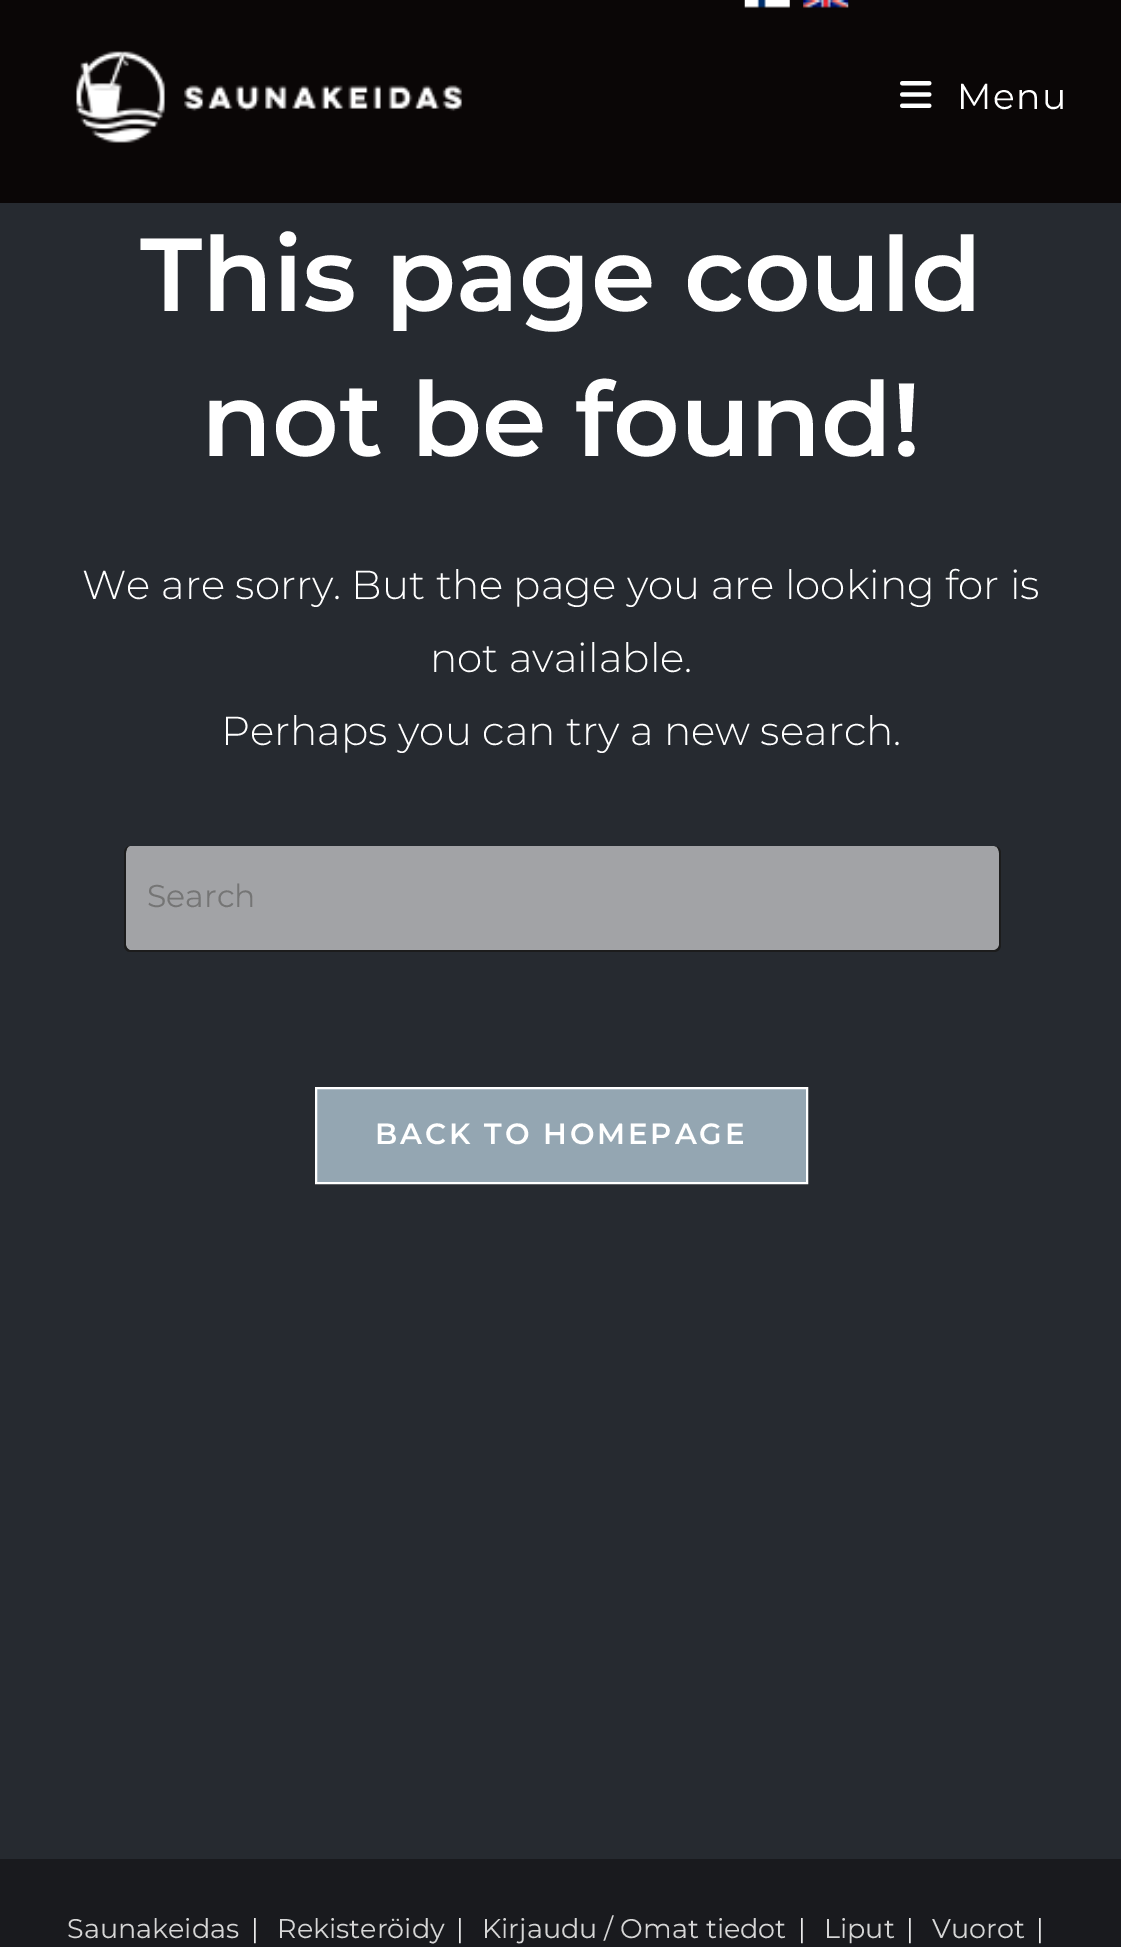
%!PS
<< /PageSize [1121 1947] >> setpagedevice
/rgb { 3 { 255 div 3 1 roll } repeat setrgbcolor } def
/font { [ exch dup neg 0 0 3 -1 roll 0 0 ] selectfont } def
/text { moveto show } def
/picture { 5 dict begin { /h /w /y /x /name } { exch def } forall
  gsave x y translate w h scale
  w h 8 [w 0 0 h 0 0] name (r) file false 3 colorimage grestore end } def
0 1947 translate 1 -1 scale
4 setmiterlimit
38 42 48 rgb
0 0 1121 1947 rectfill
10 6 6 rgb
0 0 1121 203 rectfill
(img_01.rgb) 744 0 46 8 picture
(img_02.rgb) 803 0 46 8 picture
(img_03.rgb) 76 51 386 92 picture
(img_04.rgb) 900 81 32 27 picture
162 163 166 rgb
130 846 moveto 864 0 rlineto 3 0 5 3 5 7 rcurveto 0 92 rlineto 0 2 -2 5 -5 5 rcurveto -864 0 rlineto -2 0 -4 -3 -4 -5 rcurveto 0 -92 rlineto 0 -4 2 -7 4 -7 rcurveto closepath fill
28 28 28 rgb
130 846 moveto 864 0 rlineto 4 0 7 3 7 7 rcurveto 0 92 rlineto 0 4 -3 7 -7 7 rcurveto -864 0 rlineto -3 0 -6 -3 -6 -7 rcurveto 0 -92 rlineto 0 -4 3 -7 6 -7 rcurveto closepath 130 846 moveto 864 0 rlineto 3 0 5 3 5 7 rcurveto 0 92 rlineto 0 2 -2 5 -5 5 rcurveto -864 0 rlineto -2 0 -4 -3 -4 -5 rcurveto 0 -92 rlineto 0 -4 2 -7 4 -7 rcurveto closepath eofill
148 166 178 rgb
316 1088 moveto 491 0 rlineto 0 95 rlineto -491 0 rlineto closepath gsave fill grestore
255 255 255 rgb
2 setlinewidth
stroke
25 26 30 rgb
0 1859 1121 88 rectfill
/Montserrat-Regular 36 font
255 255 255 rgb
957 109 moveto 1.5 0 (Menu) ashow
/Montserrat-SemiBold 103.5 font
(This page could) 140 311 text
(not be found!) 201 456 text
/Montserrat-Light 40.5 font
(We are sorry. But the page you are looking for is) 82 599 text
(not available.) 430 672 text
(Perhaps you can try a new search.) 221 745 text
/Montserrat-Regular 31.5 font
117 117 117 rgb
(Search) 147 907 text
/Montserrat-SemiBold 29.25 font
255 255 255 rgb
375 1144 moveto 2.9 0 (BACK TO HOMEPAGE) ashow
/Montserrat-Regular 27 font
214 214 214 rgb
(Saunakeidas) 67 1938 text
234 234 234 rgb
(|) 251 1938 text
214 214 214 rgb
(Rekisteröidy) 277 1938 text
234 234 234 rgb
(|) 456 1938 text
214 214 214 rgb
(Kirjaudu / Omat tiedot) 482 1938 text
234 234 234 rgb
(|) 798 1938 text
214 214 214 rgb
(Liput) 824 1938 text
234 234 234 rgb
(|) 906 1938 text
214 214 214 rgb
(Vuorot) 932 1938 text
234 234 234 rgb
(|) 1036 1938 text
showpage
